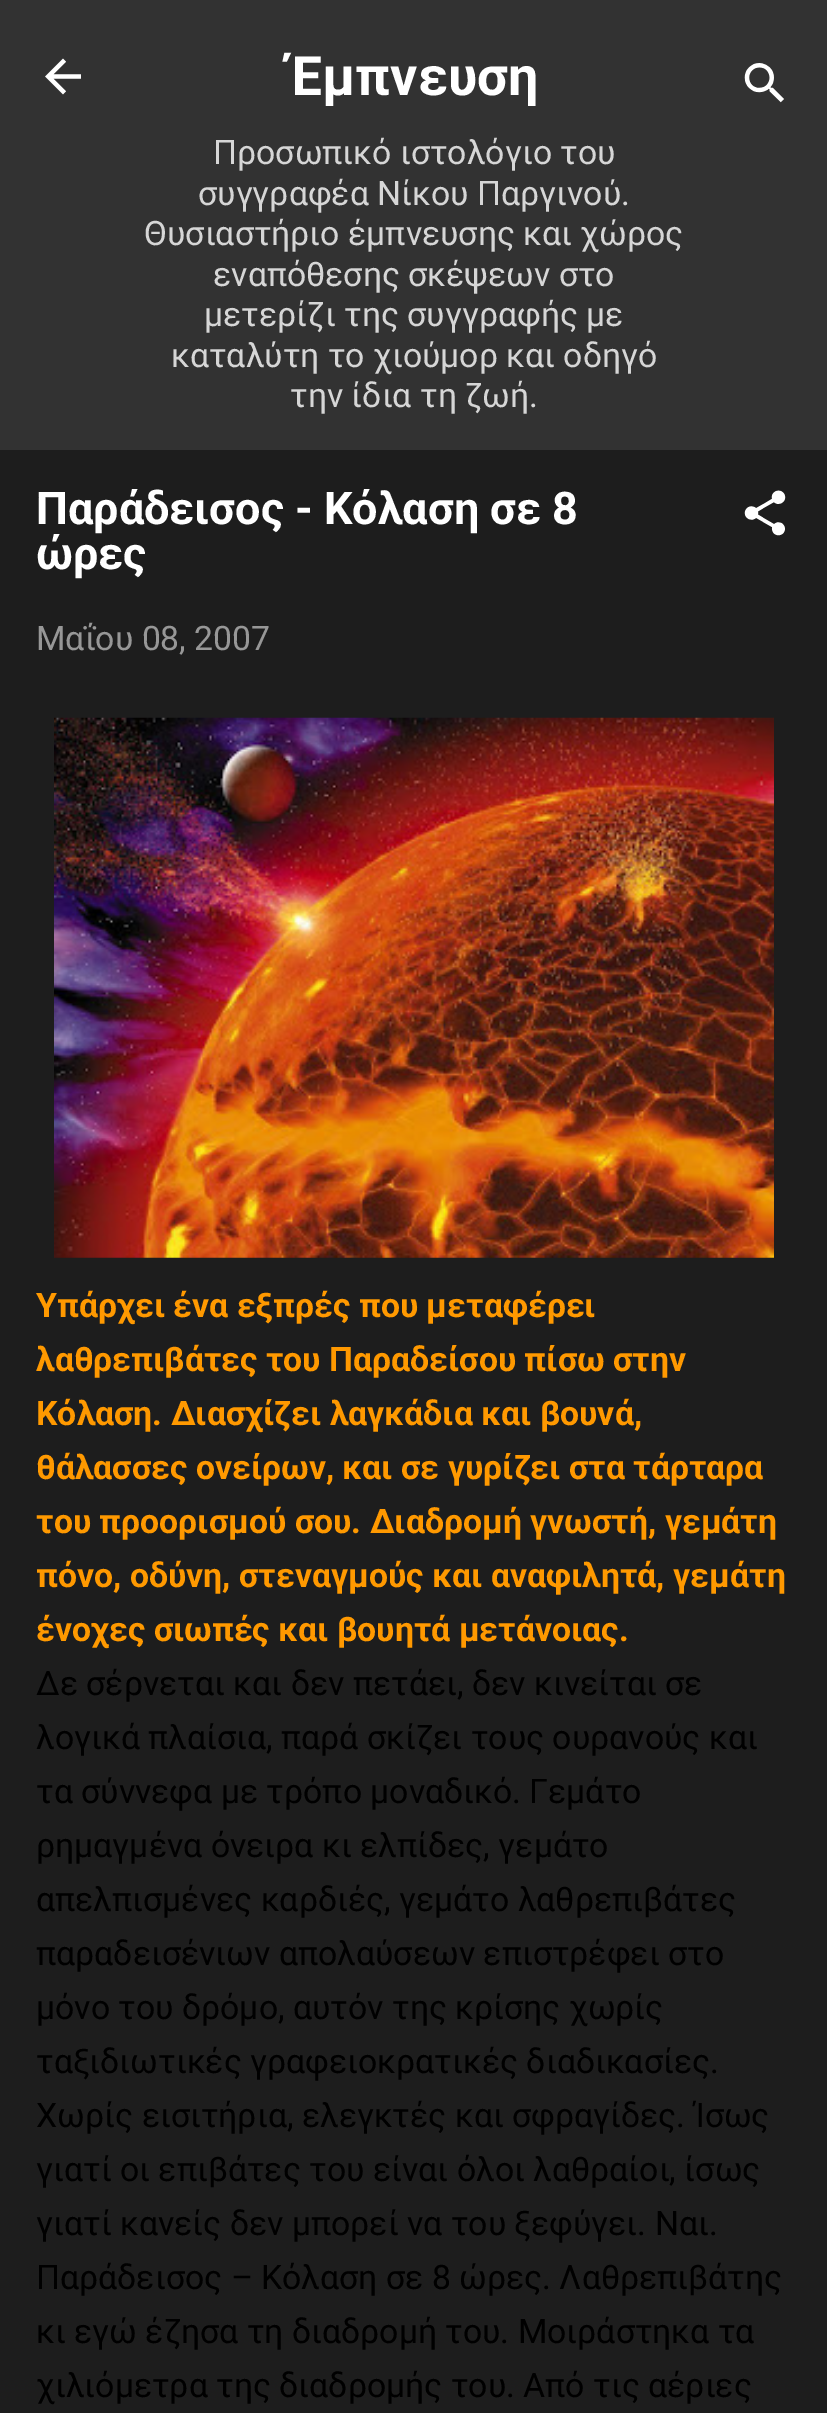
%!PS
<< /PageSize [827 2413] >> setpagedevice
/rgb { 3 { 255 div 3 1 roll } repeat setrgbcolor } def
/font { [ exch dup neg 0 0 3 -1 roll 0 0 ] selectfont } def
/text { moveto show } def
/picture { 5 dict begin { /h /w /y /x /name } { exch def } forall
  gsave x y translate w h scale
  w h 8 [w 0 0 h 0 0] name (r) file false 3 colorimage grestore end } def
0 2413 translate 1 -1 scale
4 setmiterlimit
50 50 50 rgb
0 0 827 2413 rectfill
(img_01.rgb) 45 58 36 37 picture
(img_02.rgb) 744 63 40 40 picture
29 29 29 rgb
0 450 827 1963 rectfill
(img_03.rgb) 744 490 42 46 picture
(img_04.rgb) 54 717 720 541 picture
/Roboto-Bold 54 font
255 255 255 rgb
(Έμπνευση) 289 95 text
/Roboto-Regular 33.75 font
214 214 214 rgb
(Προσωπικό ιστολόγιο του) 213 164 text
(συγγραφέα Νίκου Παργινού.) 198 205 text
(Θυσιαστήριο έμπνευσης και χώρος) 144 245 text
(εναπόθεσης σκέψεων στο) 213 286 text
(μετερίζι της συγγραφής με) 204 326 text
(καταλύτη το χιούμορ και οδηγό) 171 367 text
(την ίδια τη ζωή.) 290 407 text
/Roboto-Bold 45 font
255 255 255 rgb
(Παράδεισος - Κόλαση σε 8) 36 524 text
(ώρες) 36 569 text
/Roboto-Regular 33.75 font
151 151 151 rgb
(Μαΐου 08, 2007) 36 650 text
/Roboto-Bold 33.75 font
255 153 0 rgb
(Υπάρχει ένα εξπρές που μεταφέρει) 36 1317 text
(λαθρεπιβάτες του Παραδείσου πίσω στην) 36 1371 text
(Κόλαση. Διασχίζει λαγκάδια και βουνά,) 36 1425 text
(θάλασσες ονείρων, και σε γυρίζει στα τάρταρα) 36 1479 text
(του προορισμού σου. Διαδρομή γνωστή, γεμάτη) 36 1533 text
(πόνο, οδύνη, στεναγμούς και αναφιλητά, γεμάτη) 36 1587 text
(ένοχες σιωπές και βουητά μετάνοιας.) 36 1641 text
/Roboto-Regular 33.75 font
0 0 0 rgb
(Δε σέρνεται και δεν πετάει, δεν κινείται σε) 36 1695 text
(λογικά πλαίσια, παρά σκίζει τους ουρανούς και) 36 1749 text
(τα σύννεφα με τρόπο μοναδικό. Γεμάτο) 36 1803 text
(ρημαγμένα όνειρα κι ελπίδες, γεμάτο) 36 1857 text
(απελπισμένες καρδιές, γεμάτο λαθρεπιβάτες) 36 1911 text
(παραδεισένιων απολαύσεων επιστρέφει στο) 36 1965 text
(μόνο του δρόμο, αυτόν της κρίσης χωρίς) 36 2019 text
(ταξιδιωτικές γραφειοκρατικές διαδικασίες.) 36 2073 text
(Χωρίς εισιτήρια, ελεγκτές και σφραγίδες. Ίσως) 36 2127 text
(γιατί οι επιβάτες του είναι όλοι λαθραίοι, ίσως) 36 2181 text
(γιατί κανείς δεν μπορεί να του ξεφύγει. Ναι.) 36 2235 text
(Παράδεισος – Κόλαση σε 8 ώρες. Λαθρεπιβάτης) 36 2289 text
(κι εγώ έζησα τη διαδρομή του. Μοιράστηκα τα) 36 2343 text
(χιλιόμετρα της διαδρομής του. Από τις αέριες) 36 2397 text
showpage
